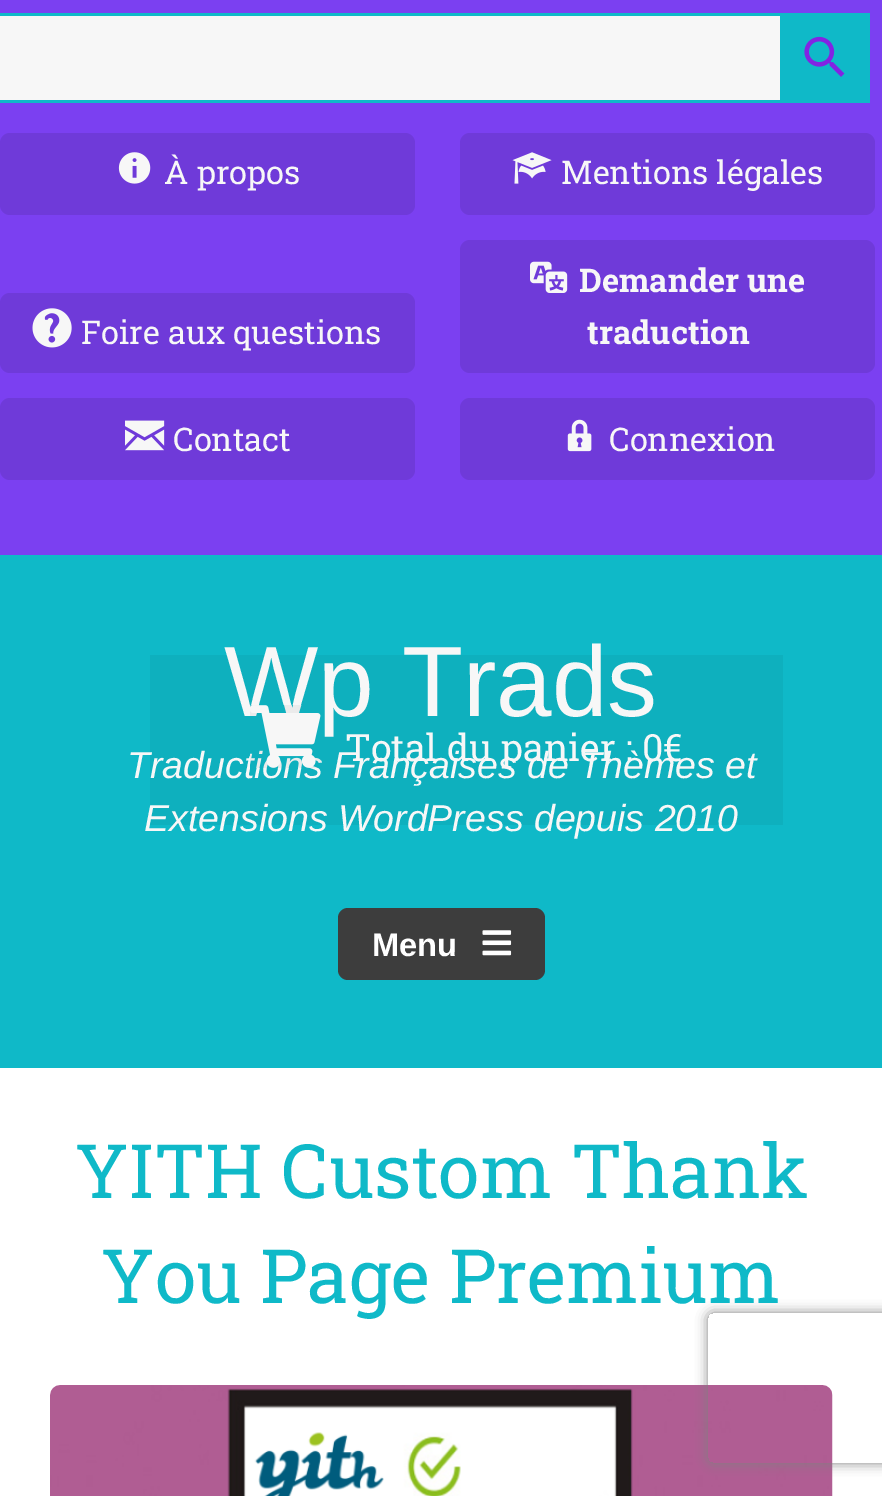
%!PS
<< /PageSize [882 1496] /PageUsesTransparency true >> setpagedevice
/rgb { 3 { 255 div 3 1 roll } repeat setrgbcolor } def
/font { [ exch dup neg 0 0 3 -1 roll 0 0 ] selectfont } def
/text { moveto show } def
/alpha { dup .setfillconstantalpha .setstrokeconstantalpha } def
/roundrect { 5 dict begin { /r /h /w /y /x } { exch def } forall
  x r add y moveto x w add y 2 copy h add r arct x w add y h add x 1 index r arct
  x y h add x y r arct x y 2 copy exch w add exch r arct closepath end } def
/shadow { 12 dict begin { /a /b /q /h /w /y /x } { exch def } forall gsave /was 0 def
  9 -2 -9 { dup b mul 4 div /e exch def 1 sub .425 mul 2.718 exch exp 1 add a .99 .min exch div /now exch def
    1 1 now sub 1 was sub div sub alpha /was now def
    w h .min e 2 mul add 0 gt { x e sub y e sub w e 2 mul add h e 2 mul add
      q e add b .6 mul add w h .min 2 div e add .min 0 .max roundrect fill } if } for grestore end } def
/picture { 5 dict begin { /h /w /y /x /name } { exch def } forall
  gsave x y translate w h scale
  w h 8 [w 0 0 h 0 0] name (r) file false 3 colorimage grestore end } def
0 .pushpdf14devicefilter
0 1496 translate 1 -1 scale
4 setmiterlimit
255 255 255 rgb
0 0 882 1496 rectfill
123 64 241 rgb
0 0 882 555 rectfill
247 247 247 rgb
0 16 780 84 rectfill
15 185 200 rgb
0 13 780 3 rectfill
0 100 780 3 rectfill
780 13 90 90 rectfill
(img_01.rgb) 804 36 41 41 picture
111 58 217 rgb
0 133 415 82 10 roundrect fill
(img_02.rgb) 118 152 33 32 picture
460 133 415 82 10 roundrect fill
(img_03.rgb) 512 152 40 32 picture
0 293 415 80 10 roundrect fill
(img_04.rgb) 32 308 40 40 picture
460 240 415 133 10 roundrect fill
(img_05.rgb) 530 261 38 32 picture
0 398 415 82 10 roundrect fill
(img_06.rgb) 125 420 40 31 picture
460 398 415 82 10 roundrect fill
(img_07.rgb) 567 419 25 33 picture
15 185 200 rgb
0 555 882 513 rectfill
0.05 alpha
0 0 0 rgb
150 655 633 170 rectfill
1 alpha
61 61 61 rgb
338 908 207 72 10 roundrect fill
(img_09.rgb) 482 930 30 26 picture
(img_10.rgb) 50 1385 783 111 picture
gsave
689 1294 moveto 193 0 rlineto 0 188 rlineto -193 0 rlineto closepath 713 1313 moveto 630 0 rlineto 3 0 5 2 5 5 rcurveto 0 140 rlineto 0 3 -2 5 -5 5 rcurveto -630 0 rlineto -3 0 -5 -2 -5 -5 rcurveto 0 -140 rlineto 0 -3 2 -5 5 -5 rcurveto closepath eoclip newpath
128 128 128 rgb
708 1313 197 150 5 6 1 shadow
grestore
/RobotoSlab-Regular 32.6 font
247 247 247 rgb
(À propos) 164 184 text
(Mentions légales) 561 184 text
(Foire aux questions) 81 344 text
/RobotoSlab-Bold 32.6 font
(Demander une) 579 292 text
(traduction) 587 344 text
/RobotoSlab-Regular 32.6 font
(Contact) 173 451 text
(Connexion) 609 451 text
/LiberationSans-Regular 100 font
(Wp Trads) 224 716 text
/LiberationSans-Italic 37.5 font
(Traductions Françaises de Thèmes et) 127 778 text
(Extensions WordPress depuis 2010) 144 831 text
(img_08.rgb) 250 705 71 63 picture
/RobotoSlab-Regular 37.5 font
(Total du panier : 0€) 345 761 text
/LiberationSans-Bold 32.6 font
255 255 255 rgb
(Menu) 372 956 text
/RobotoSlab-Regular 75 font
15 185 200 rgb
(YITH Custom Thank) 75 1198 text
(You Page Premium) 101 1303 text
.poppdf14devicefilter showpage
